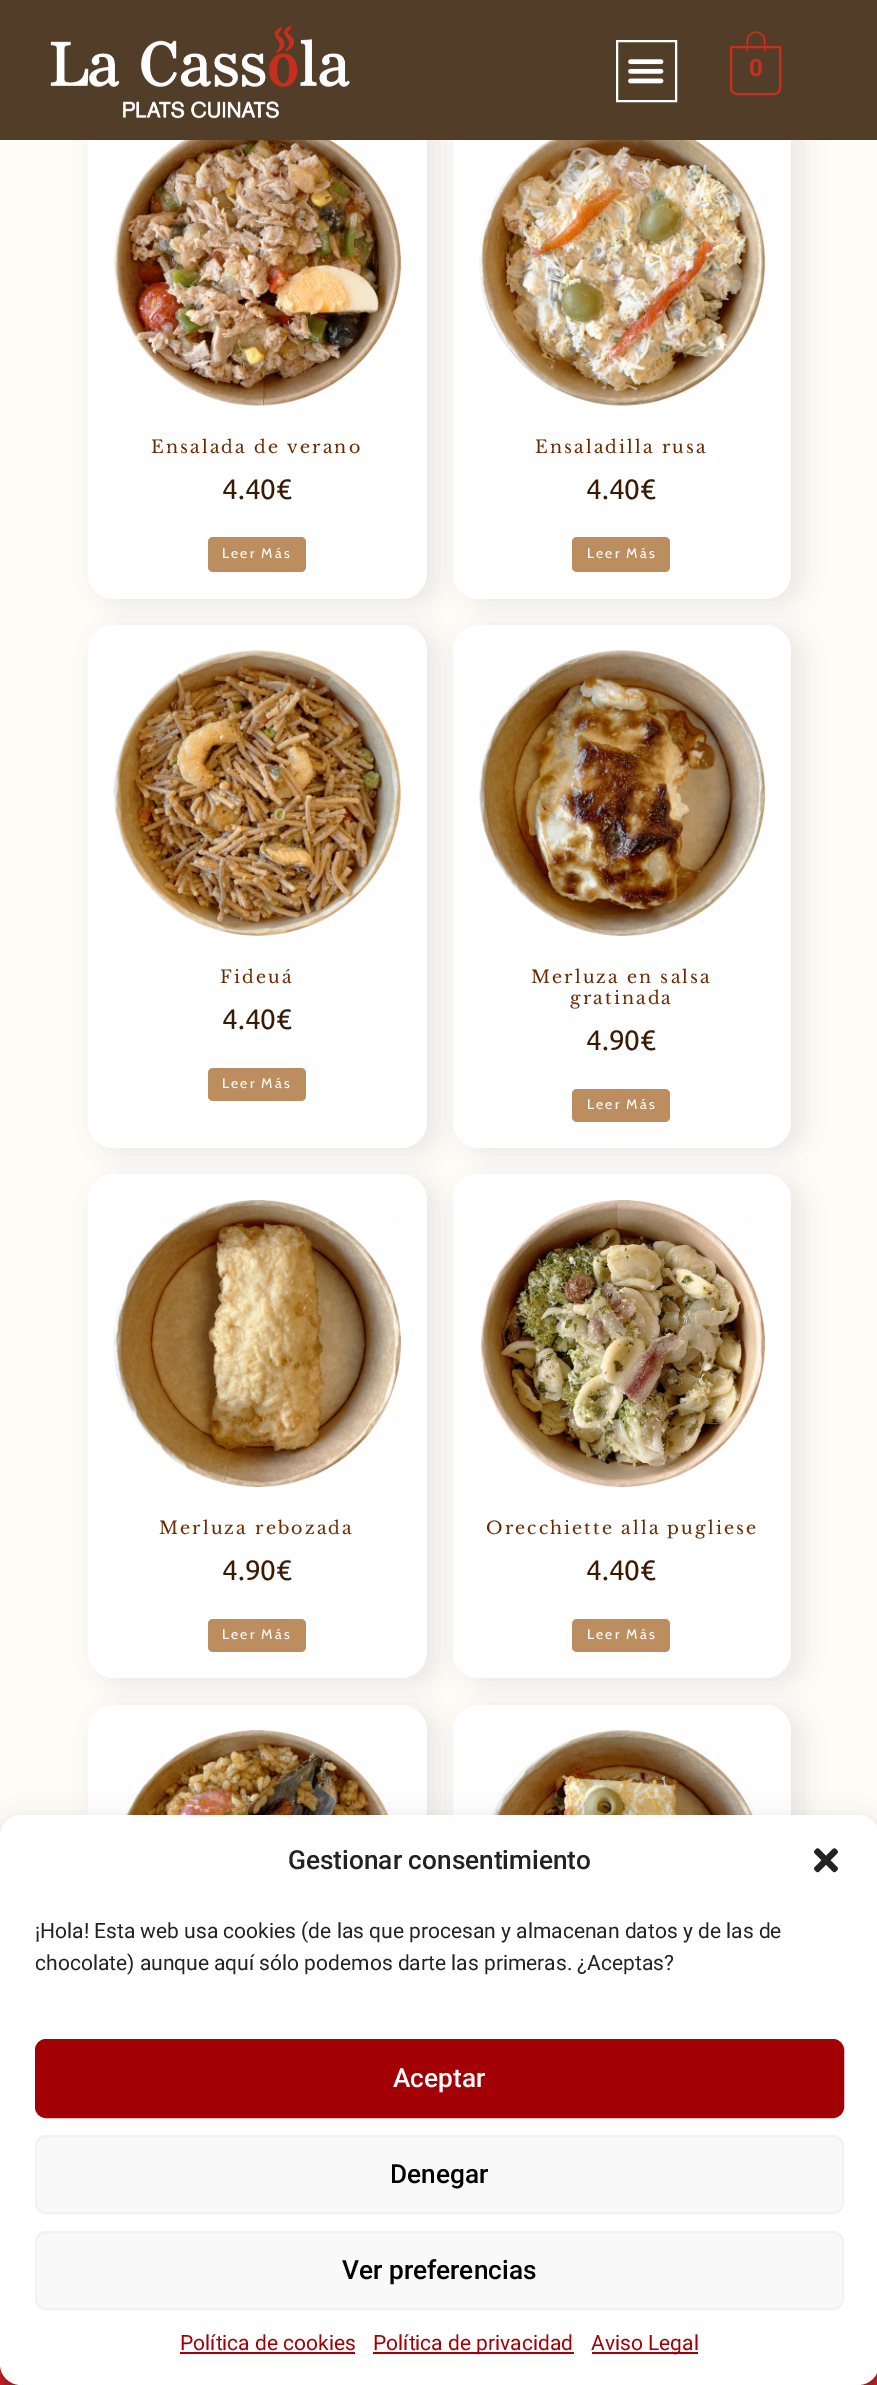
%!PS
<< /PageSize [877 2385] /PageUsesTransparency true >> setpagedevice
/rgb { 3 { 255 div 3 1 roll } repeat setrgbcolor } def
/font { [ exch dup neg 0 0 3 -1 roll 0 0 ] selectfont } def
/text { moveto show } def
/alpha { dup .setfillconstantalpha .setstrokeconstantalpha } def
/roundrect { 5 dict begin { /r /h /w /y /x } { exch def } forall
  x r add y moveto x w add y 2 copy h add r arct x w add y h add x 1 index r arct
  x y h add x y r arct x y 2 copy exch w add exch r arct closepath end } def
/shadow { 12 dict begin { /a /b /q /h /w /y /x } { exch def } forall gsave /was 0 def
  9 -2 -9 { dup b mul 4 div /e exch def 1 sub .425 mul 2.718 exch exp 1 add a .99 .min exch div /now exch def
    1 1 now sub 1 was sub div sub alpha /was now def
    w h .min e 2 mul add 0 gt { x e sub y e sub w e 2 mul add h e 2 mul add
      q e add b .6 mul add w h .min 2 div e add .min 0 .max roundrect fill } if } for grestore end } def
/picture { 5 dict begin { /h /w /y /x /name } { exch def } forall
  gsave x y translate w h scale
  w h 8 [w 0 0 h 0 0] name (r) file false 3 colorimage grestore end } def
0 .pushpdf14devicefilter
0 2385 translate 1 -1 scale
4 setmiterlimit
255 252 248 rgb
0 0 877 2385 rectfill
211 211 211 rgb
98 100 340 504 26 12 0.5 shadow
255 255 255 rgb
88 95 339 504 26 roundrect fill
211 211 211 rgb
464 100 338 504 26 12 0.5 shadow
255 255 255 rgb
453 95 338 504 26 roundrect fill
81 61 40 rgb
0 0 877 140 rectfill
(img_01.rgb) 50 25 300 94 picture
255 255 255 rgb
2 setlinewidth
617 41 59 60 rectstroke
(img_02.rgb) 628 59 36 25 picture
199 47 33 rgb
731 47 moveto 49 0 rlineto 0 41 rlineto 0 3.5 -2.5 6 -6 6 rcurveto -37 0 rlineto -3.5 0 -6 -2.5 -6 -6 rcurveto closepath stroke
756 31.5 moveto 5.5 0 9.5 4.5 9.5 9.5 rcurveto 0 10 rlineto -19 0 rlineto 0 -10 rlineto 0 -5 4 -9.5 9.5 -9.5 rcurveto closepath 756 33 moveto 9.5 0 8 11.5 8 18 rcurveto -16 0 rlineto 0 -6.5 -1.5 -18 8 -18 rcurveto closepath eofill
(img_03.rgb) 113 140 288 266 picture
187 141 95 rgb
208 537 98 35 5 roundrect fill
(img_04.rgb) 479 140 286 266 picture
572 537 98 35 5 roundrect fill
211 211 211 rgb
98 630 340 523 26 12 0.5 shadow
255 255 255 rgb
88 625 339 523 26 roundrect fill
(img_05.rgb) 113 650 288 286 picture
187 141 95 rgb
208 1068 98 33 5 roundrect fill
211 211 211 rgb
464 630 338 523 26 12 0.5 shadow
255 255 255 rgb
453 625 338 523 26 roundrect fill
(img_06.rgb) 479 650 286 286 picture
187 141 95 rgb
572 1089 98 33 5 roundrect fill
211 211 211 rgb
98 1180 340 504 26 12 0.5 shadow
255 255 255 rgb
88 1174 339 504 26 roundrect fill
(img_07.rgb) 113 1200 288 287 picture
187 141 95 rgb
208 1619 98 33 5 roundrect fill
211 211 211 rgb
464 1180 338 504 26 12 0.5 shadow
255 255 255 rgb
453 1174 338 504 26 roundrect fill
(img_08.rgb) 479 1200 286 287 picture
187 141 95 rgb
572 1619 98 33 5 roundrect fill
211 211 211 rgb
98 1710 340 504 26 12 0.5 shadow
255 255 255 rgb
88 1705 339 504 26 roundrect fill
(img_09.rgb) 126 1730 263 85 picture
211 211 211 rgb
464 1710 338 504 26 12 0.5 shadow
255 255 255 rgb
453 1705 338 504 26 roundrect fill
(img_10.rgb) 491 1730 262 85 picture
229 39 41 rgb
0 2364 877 21 rectfill
0 0 0 rgb
0 1825 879 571 21 5 0.23 shadow
0 1832 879 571 21 17.5 0.19 shadow
255 255 255 rgb
0 1815 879 570 21 roundrect fill
(img_11.rgb) 814 1848 24 25 picture
162 0 5 rgb
36 2040 807 77 10 roundrect gsave fill grestore
stroke
249 249 249 rgb
36 2136 807 77 10 roundrect gsave fill grestore
242 242 242 rgb
stroke
249 249 249 rgb
36 2232 807 77 10 roundrect gsave fill grestore
242 242 242 rgb
stroke
162 0 5 rgb
180 2352 175 2 rectfill
373 2352 201 2 rectfill
592 2352 106 2 rectfill
/Roboto-Bold 24 font
199 47 33 rgb
(0) 749 76 text
/LibreBaskerville-Regular 17.5 font
108 41 0 rgb
151 453 moveto 2.1 0 (Ensalada de verano) ashow
/Ubuntu-Regular 28 font
58 26 3 rgb
(4.40€) 222 499 text
/Cabin-Regular 14 font
255 255 255 rgb
222 558 moveto 2.1 0 (Leer Más) ashow
/LibreBaskerville-Regular 17.5 font
108 41 0 rgb
535 453 moveto 2.1 0 (Ensaladilla rusa) ashow
/Ubuntu-Regular 28 font
58 26 3 rgb
(4.40€) 586 499 text
/Cabin-Regular 14 font
255 255 255 rgb
587 558 moveto 2.1 0 (Leer Más) ashow
/LibreBaskerville-Regular 17.5 font
108 41 0 rgb
220 983 moveto 2.1 0 (Fideuá) ashow
/Ubuntu-Regular 28 font
58 26 3 rgb
(4.40€) 222 1029 text
/Cabin-Regular 14 font
255 255 255 rgb
222 1088 moveto 2.1 0 (Leer Más) ashow
/LibreBaskerville-Regular 17.5 font
108 41 0 rgb
531 983 moveto 2.1 0 (Merluza en salsa) ashow
570 1004 moveto 2.1 0 (gratinada) ashow
/Ubuntu-Regular 28 font
58 26 3 rgb
(4.90€) 586 1050 text
/Cabin-Regular 14 font
255 255 255 rgb
587 1109 moveto 2.1 0 (Leer Más) ashow
/LibreBaskerville-Regular 17.5 font
108 41 0 rgb
159 1534 moveto 2.1 0 (Merluza rebozada) ashow
/Ubuntu-Regular 28 font
58 26 3 rgb
(4.90€) 222 1580 text
/Cabin-Regular 14 font
255 255 255 rgb
222 1639 moveto 2.1 0 (Leer Más) ashow
/LibreBaskerville-Regular 17.5 font
108 41 0 rgb
486 1534 moveto 2.1 0 (Orecchiette alla pugliese) ashow
/Ubuntu-Regular 28 font
58 26 3 rgb
(4.40€) 586 1580 text
/Cabin-Regular 14 font
255 255 255 rgb
587 1639 moveto 2.1 0 (Leer Más) ashow
/Roboto-Medium 26.25 font
34 34 34 rgb
(Gestionar consentimiento) 288 1869 text
/Roboto-Regular 21 font
(¡Hola! Esta web usa cookies \(de las que procesan y almacenan datos y de las de) 35 1938 text
(chocolate\) aunque aquí sólo podemos darte las primeras. ¿Aceptas?) 35 1970 text
/Roboto-Medium 26.25 font
255 255 255 rgb
(Aceptar) 393 2087 text
0 0 0 rgb
(Denegar) 390 2183 text
(Ver preferencias) 342 2279 text
/Roboto-Regular 21 font
162 0 5 rgb
(Política de cookies) 180 2350 text
(Política de privacidad) 373 2350 text
(Aviso Legal) 591 2350 text
.poppdf14devicefilter showpage
